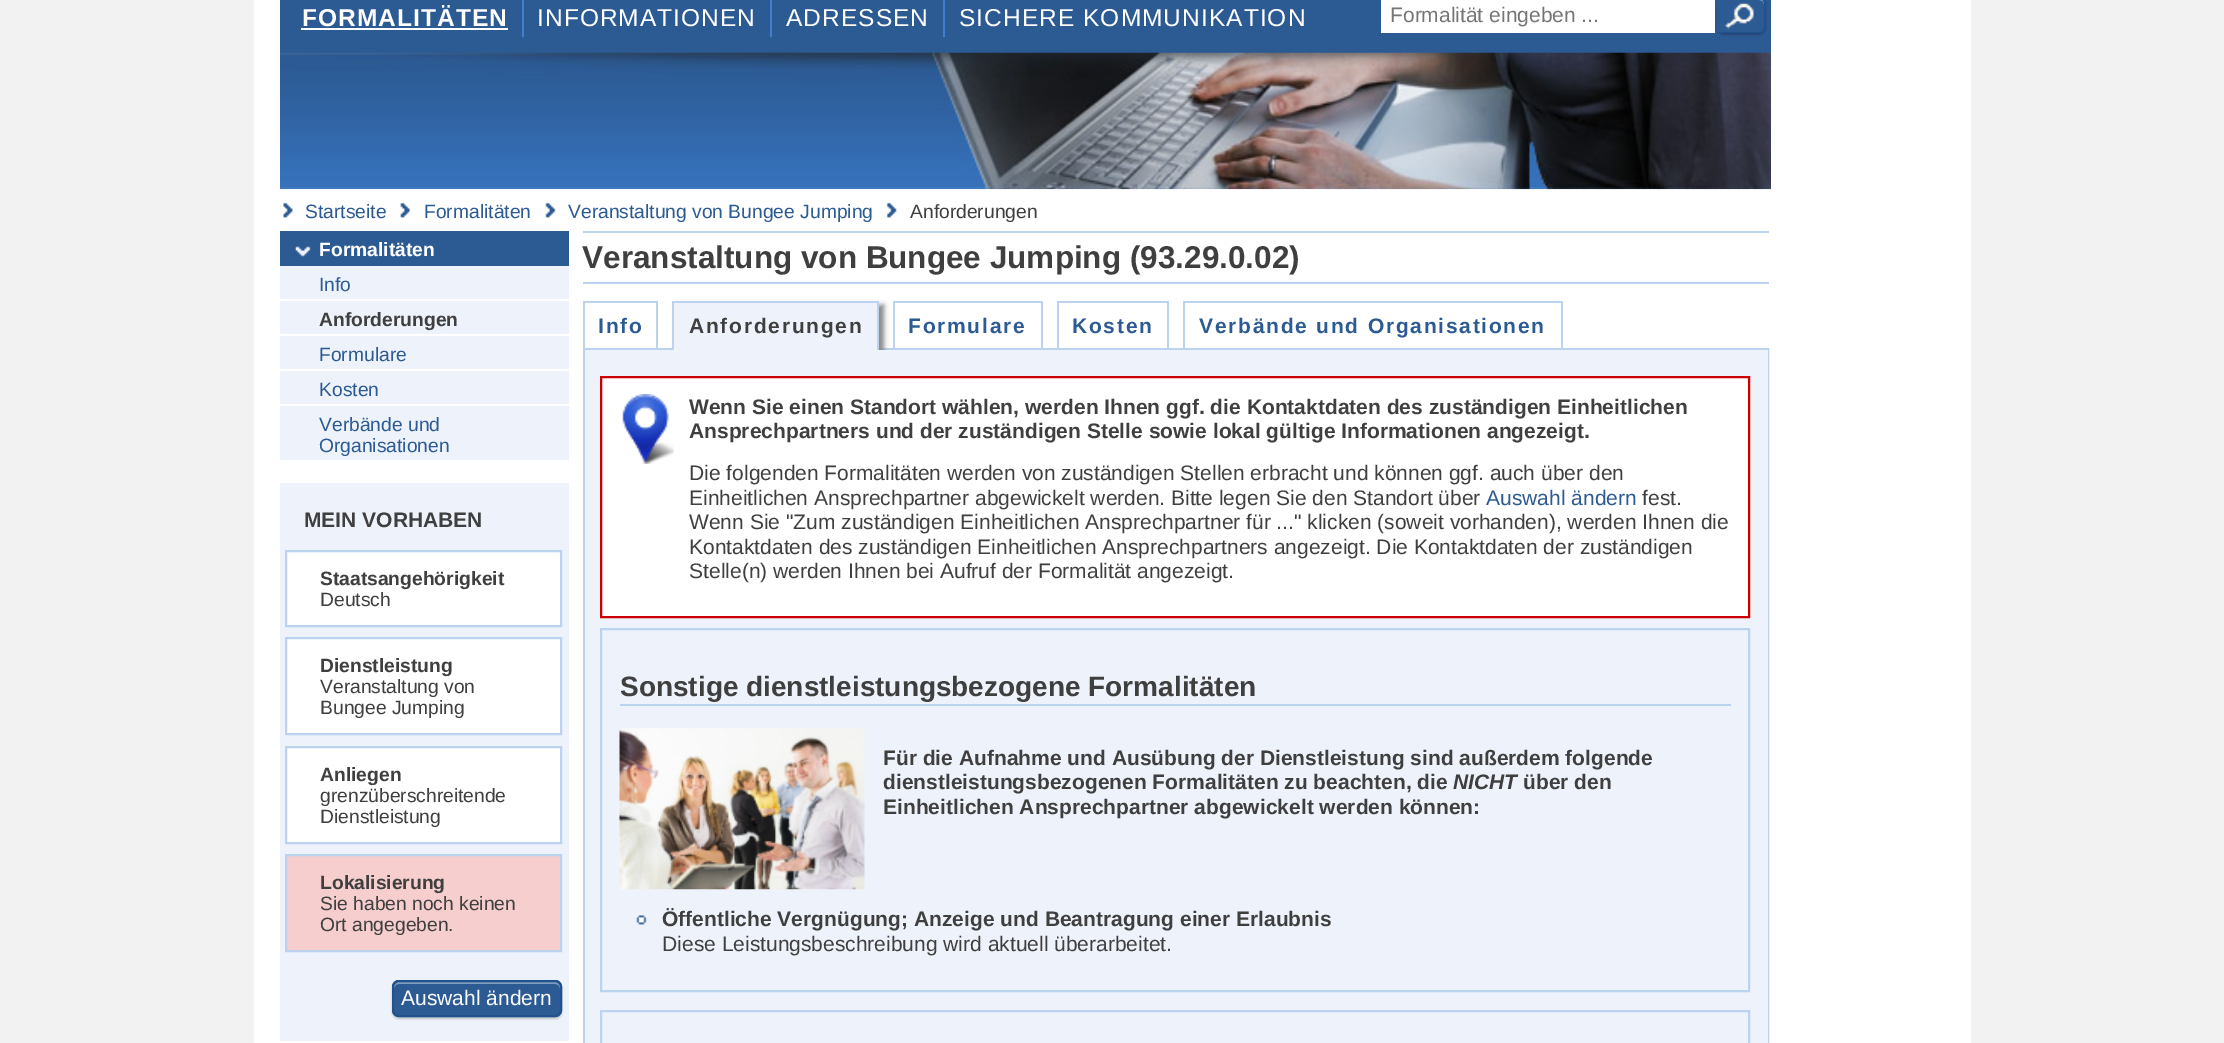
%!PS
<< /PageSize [2224 1043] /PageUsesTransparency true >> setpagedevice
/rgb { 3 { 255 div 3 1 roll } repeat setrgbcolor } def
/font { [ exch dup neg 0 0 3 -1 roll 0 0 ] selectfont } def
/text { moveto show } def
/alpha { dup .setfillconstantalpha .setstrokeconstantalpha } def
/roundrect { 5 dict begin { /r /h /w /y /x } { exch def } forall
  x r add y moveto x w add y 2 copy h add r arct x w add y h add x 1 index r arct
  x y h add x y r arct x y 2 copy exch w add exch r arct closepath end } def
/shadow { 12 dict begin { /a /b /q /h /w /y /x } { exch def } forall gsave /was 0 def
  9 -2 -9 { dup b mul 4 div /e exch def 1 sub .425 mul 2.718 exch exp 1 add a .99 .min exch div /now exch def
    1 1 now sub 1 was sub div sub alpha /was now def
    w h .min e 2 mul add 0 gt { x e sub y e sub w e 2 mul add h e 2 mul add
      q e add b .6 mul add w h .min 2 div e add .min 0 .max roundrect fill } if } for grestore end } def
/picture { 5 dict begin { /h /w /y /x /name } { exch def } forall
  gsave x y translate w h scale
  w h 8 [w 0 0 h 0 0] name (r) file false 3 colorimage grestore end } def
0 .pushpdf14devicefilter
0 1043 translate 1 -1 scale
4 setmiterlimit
242 242 242 rgb
0 0 2224 1043 rectfill
255 255 255 rgb
254 0 1717 1043 rectfill
44 90 147 rgb
280 0 1491 53 rectfill
65 126 205 rgb
522 0 2 37 rectfill
255 255 255 rgb
301 28 207 2 rectfill
65 126 205 rgb
770 0 2 37 rectfill
943 0 2 37 rectfill
255 255 255 rgb
1381 0 334 33 rectfill
0 0 0 rgb
1717 -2 49 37 7 1 0.2 shadow
44 90 147 rgb
1717 -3 moveto 42 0 rlineto 4 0 7 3 7 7 rcurveto 0 22 rlineto 0 4 -3 7 -7 7 rcurveto -42 0 rlineto closepath fill
128 156 190 rgb
1717 0 moveto 42 0 rlineto 3 0 5 2 5 5 rcurveto 0 -2 rlineto 0 -3 -2 -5 -5 -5 rcurveto -42 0 rlineto closepath fill
32 83 141 rgb
1717 -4 moveto 42 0 rlineto 4 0 7 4 7 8 rcurveto 0 22 rlineto 0 4 -3 7 -7 7 rcurveto -42 0 rlineto closepath 1717 -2 moveto 42 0 rlineto 3 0 5 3 5 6 rcurveto 0 22 rlineto 0 3 -2 6 -5 6 rcurveto -42 0 rlineto closepath eofill
(img_01.rgb) 1725 3 29 26 picture
(img_02.rgb) 280 52 1491 138 picture
(img_03.rgb) 283 202 10 16 picture
(img_04.rgb) 400 202 10 16 picture
(img_05.rgb) 545 202 11 16 picture
(img_06.rgb) 886 202 11 16 picture
44 90 147 rgb
280 231 289 35 rectfill
(img_07.rgb) 295 246 16 11 picture
238 243 251 rgb
280 266 289 33 rectfill
280 301 289 33 rectfill
280 336 289 33 rectfill
280 371 289 33 rectfill
280 406 289 54 rectfill
280 483 289 558 rectfill
255 255 255 rgb
286 551 moveto 275 0 rlineto 0 75 rlineto -275 0 rlineto closepath gsave fill grestore
187 211 239 rgb
2 setlinewidth
stroke
255 255 255 rgb
286 638 moveto 275 0 rlineto 0 96 rlineto -275 0 rlineto closepath gsave fill grestore
187 211 239 rgb
stroke
255 255 255 rgb
286 747 moveto 275 0 rlineto 0 96 rlineto -275 0 rlineto closepath gsave fill grestore
187 211 239 rgb
stroke
246 206 206 rgb
286 855 moveto 275 0 rlineto 0 96 rlineto -275 0 rlineto closepath gsave fill grestore
187 211 239 rgb
stroke
0 0 0 rgb
392 982 170 37 7 1 0.2 shadow
44 90 147 rgb
392 980 170 37 7 roundrect fill
128 156 190 rgb
399 984 moveto 156 0 rlineto 3 0 5 2 5 5 rcurveto 0 -2 rlineto 0 -3 -2 -5 -5 -5 rcurveto -156 0 rlineto -3 0 -5 2 -5 5 rcurveto 0 2 rlineto 0 -3 2 -5 5 -5 rcurveto closepath fill
32 83 141 rgb
393 981 168 35 6 roundrect stroke
187 211 239 rgb
583 231 1186 2 rectfill
583 282 1186 2 rectfill
583 301 75 2 rectfill
656 301 2 47 rectfill
583 301 2 47 rectfill
584 349 1184 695 rectstroke
136 136 136 rgb
677 305 207 49 0 2.5 1 shadow
238 243 251 rgb
674 303 203 47 rectfill
187 211 239 rgb
672 301 207 2 rectfill
877 301 2 49 rectfill
672 301 2 49 rectfill
893 301 150 2 rectfill
1041 301 2 47 rectfill
893 301 2 47 rectfill
1057 301 112 2 rectfill
1167 301 2 47 rectfill
1057 301 2 47 rectfill
1183 301 380 2 rectfill
1561 301 2 47 rectfill
1183 301 2 47 rectfill
238 243 251 rgb
585 350 1183 693 rectfill
255 255 255 rgb
601 377 moveto 1148 0 rlineto 0 240 rlineto -1148 0 rlineto closepath gsave fill grestore
204 0 0 rgb
stroke
(img_08.rgb) 622 394 52 70 picture
187 211 239 rgb
601 629 1148 362 rectstroke
620 704 1111 2 rectfill
(img_09.rgb) 619 728 246 162 picture
(img_10.rgb) 636 915 11 10 picture
601 1011 1148 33 rectstroke
/LiberationSans-Bold 24.5 font
255 255 255 rgb
302 26 moveto 1.05 0 (FORMALITÄTEN) ashow
/LiberationSans-Regular 24.5 font
537 26 moveto 1.05 0 (INFORMATIONEN) ashow
786 26 moveto 1.05 0 (ADRESSEN) ashow
959 26 moveto 1.05 0 (SICHERE KOMMUNIKATION) ashow
/LiberationSans-Regular 21 font
117 117 117 rgb
(Formalität eingeben ...) 1390 22 text
/LiberationSans-Regular 19.25 font
44 90 147 rgb
(Startseite) 305 218 text
(Formalitäten) 424 218 text
(Veranstaltung von Bungee Jumping) 568 218 text
63 63 63 rgb
(Anforderungen) 910 218 text
/LiberationSans-Bold 19.25 font
255 255 255 rgb
(Formalitäten) 319 256 text
/LiberationSans-Regular 19.25 font
44 90 147 rgb
(Info) 319 291 text
/LiberationSans-Bold 19.25 font
63 63 63 rgb
(Anforderungen) 319 326 text
/LiberationSans-Regular 19.25 font
44 90 147 rgb
(Formulare) 319 361 text
(Kosten) 319 396 text
(Verbände und) 319 431 text
(Organisationen) 319 452 text
/LiberationSans-Bold 21 font
63 63 63 rgb
(MEIN VORHABEN) 304 527 text
/LiberationSans-Bold 19.25 font
(Staatsangehörigkeit) 320 585 text
/LiberationSans-Regular 19.25 font
(Deutsch) 320 606 text
/LiberationSans-Bold 19.25 font
(Dienstleistung) 320 672 text
/LiberationSans-Regular 19.25 font
(Veranstaltung von) 320 693 text
(Bungee Jumping) 320 714 text
/LiberationSans-Bold 19.25 font
(Anliegen) 320 781 text
/LiberationSans-Regular 19.25 font
(grenzüberschreitende) 320 802 text
(Dienstleistung) 320 823 text
/LiberationSans-Bold 19.25 font
(Lokalisierung) 320 889 text
/LiberationSans-Regular 19.25 font
(Sie haben noch keinen) 320 910 text
(Ort angegeben.) 320 931 text
/LiberationSans-Regular 21 font
255 255 255 rgb
(Auswahl ändern) 401 1005 text
/LiberationSans-Bold 31.5 font
63 63 63 rgb
(Veranstaltung von Bungee Jumping \(93.29.0.02\)) 582 268 text
/LiberationSans-Bold 21 font
44 90 147 rgb
598 333 moveto 1.75 0 (Info) ashow
63 63 63 rgb
689 333 moveto 1.75 0 (Anforderungen) ashow
44 90 147 rgb
908 333 moveto 1.75 0 (Formulare) ashow
1072 333 moveto 1.75 0 (Kosten) ashow
1199 333 moveto 1.75 0 (Verbände und Organisationen) ashow
63 63 63 rgb
(Wenn Sie einen Standort wählen, werden Ihnen ggf. die Kontaktdaten des zuständigen Einheitlichen) 689 414 text
(Ansprechpartners und der zuständigen Stelle sowie lokal gültige Informationen angezeigt.) 689 438 text
/LiberationSans-Regular 21 font
(Die folgenden Formalitäten werden von zuständigen Stellen erbracht und können ggf. auch über den) 689 480 text
(Einheitlichen Ansprechpartner abgewickelt werden. Bitte legen Sie den Standort über) 689 505 text
44 90 147 rgb
(Auswahl ändern) 1486 505 text
63 63 63 rgb
(fest.) 1642 505 text
(Wenn Sie "Zum zuständigen Einheitlichen Ansprechpartner für ..." klicken \(soweit vorhanden\), werden Ihnen die) 689 529 text
(Kontaktdaten des zuständigen Einheitlichen Ansprechpartners angezeigt. Die Kontaktdaten der zuständigen) 689 554 text
(Stelle\(n\) werden Ihnen bei Aufruf der Formalität angezeigt.) 689 578 text
/LiberationSans-Bold 28 font
(Sonstige dienstleistungsbezogene Formalitäten) 620 696 text
/LiberationSans-Bold 21 font
(Für die Aufnahme und Ausübung der Dienstleistung sind außerdem folgende) 883 765 text
(dienstleistungsbezogenen Formalitäten zu beachten, die) 883 789 text
/LiberationSans-BoldItalic 21 font
(NICHT) 1453 789 text
/LiberationSans-Bold 21 font
(über den) 1523 789 text
(Einheitlichen Ansprechpartner abgewickelt werden können:) 883 814 text
(Öffentliche Vergnügung; Anzeige und Beantragung einer Erlaubnis) 662 926 text
/LiberationSans-Regular 21 font
(Diese Leistungsbeschreibung wird aktuell überarbeitet.) 662 951 text
.poppdf14devicefilter showpage
